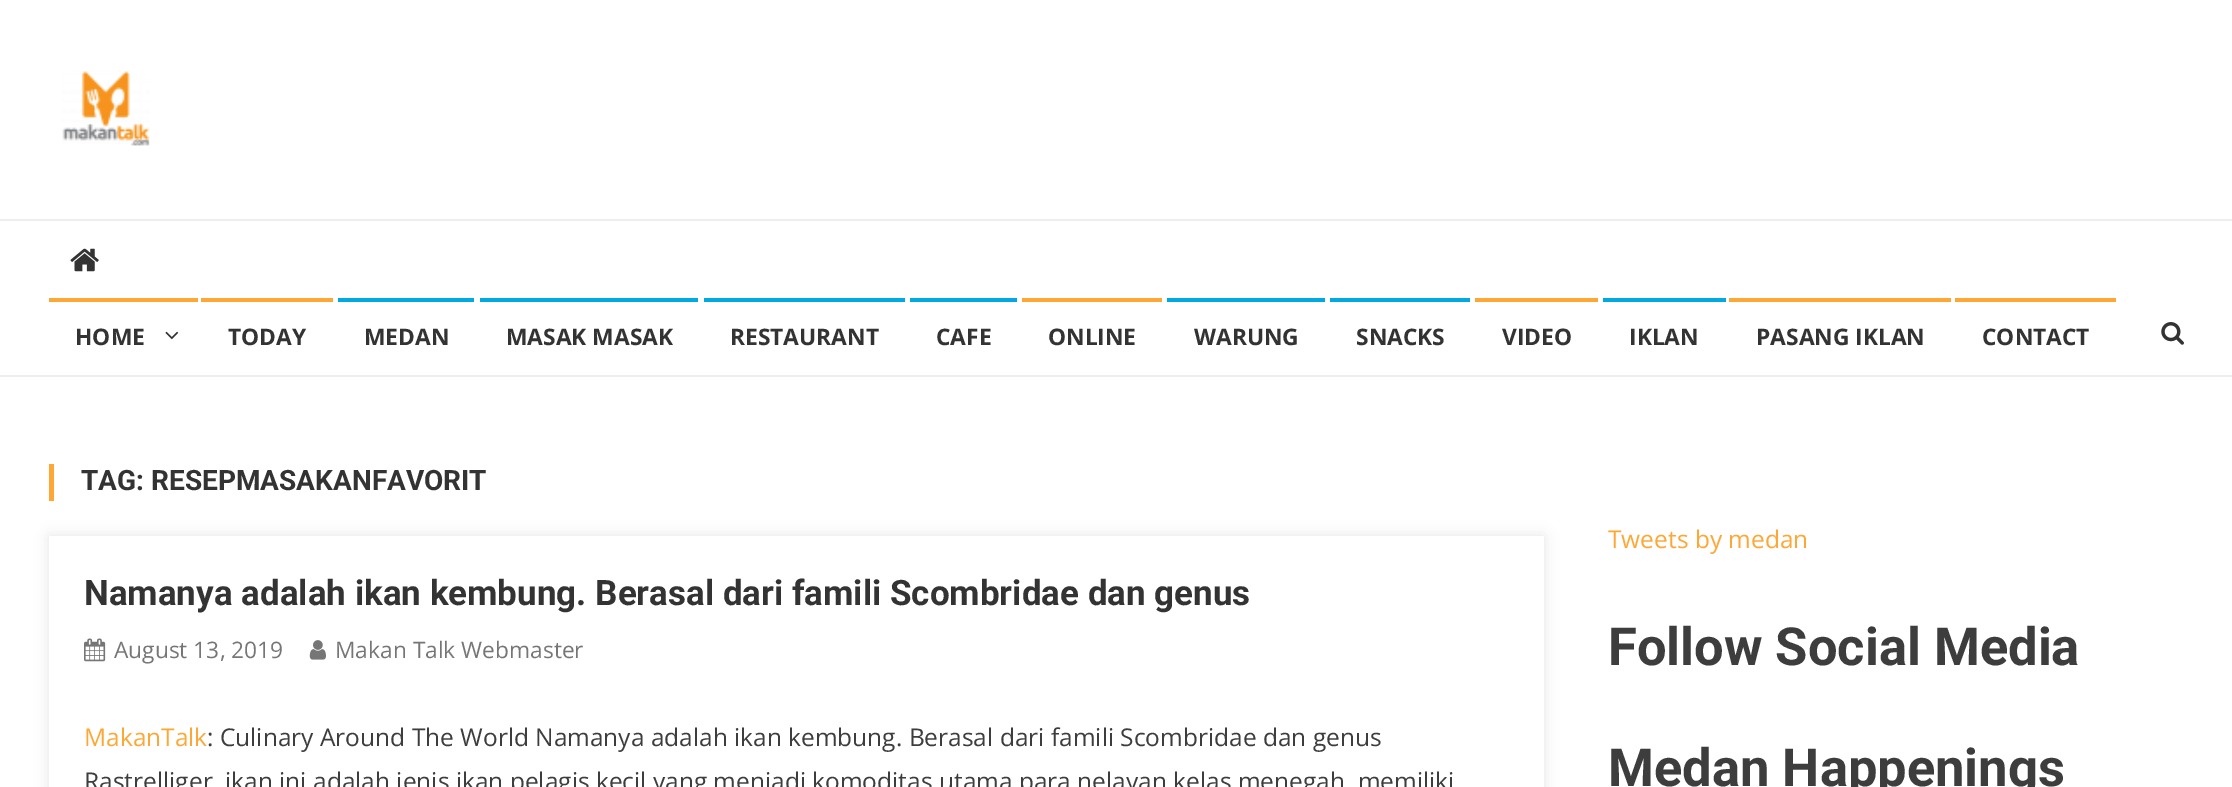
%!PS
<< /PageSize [2232 787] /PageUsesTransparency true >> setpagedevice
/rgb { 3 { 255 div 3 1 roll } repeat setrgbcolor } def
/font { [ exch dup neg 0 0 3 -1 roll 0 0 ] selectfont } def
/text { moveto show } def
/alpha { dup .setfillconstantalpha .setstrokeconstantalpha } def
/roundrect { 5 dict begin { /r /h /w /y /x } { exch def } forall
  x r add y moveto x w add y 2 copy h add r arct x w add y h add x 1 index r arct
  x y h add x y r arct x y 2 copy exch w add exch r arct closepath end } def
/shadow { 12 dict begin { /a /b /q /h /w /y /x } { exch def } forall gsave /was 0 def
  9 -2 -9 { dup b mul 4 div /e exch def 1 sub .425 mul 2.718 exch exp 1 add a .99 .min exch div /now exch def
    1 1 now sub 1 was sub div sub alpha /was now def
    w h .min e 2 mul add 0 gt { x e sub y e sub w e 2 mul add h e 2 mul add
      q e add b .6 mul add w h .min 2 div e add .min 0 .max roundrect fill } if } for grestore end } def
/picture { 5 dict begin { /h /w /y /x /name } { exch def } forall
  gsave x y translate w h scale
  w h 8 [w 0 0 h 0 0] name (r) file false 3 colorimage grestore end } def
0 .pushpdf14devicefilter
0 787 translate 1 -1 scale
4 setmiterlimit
255 255 255 rgb
0 0 2232 787 rectfill
(img_01.rgb) 62 71 88 75 picture
238 238 238 rgb
0 219 2232 2 rectfill
0 375 2232 2 rectfill
(img_02.rgb) 70 248 29 24 picture
255 167 53 rgb
49 298 149 4 rectfill
(img_03.rgb) 165 331 14 9 picture
201 298 132 4 rectfill
0 169 224 rgb
338 298 136 4 rectfill
480 298 218 4 rectfill
704 298 201 4 rectfill
910 298 107 4 rectfill
255 167 53 rgb
1022 298 140 4 rectfill
0 169 224 rgb
1167 298 158 4 rectfill
1330 298 140 4 rectfill
255 167 53 rgb
1475 298 123 4 rectfill
0 169 224 rgb
1603 298 123 4 rectfill
255 167 53 rgb
1729 298 222 4 rectfill
1955 298 161 4 rectfill
(img_04.rgb) 2161 322 23 23 picture
49 464 5 37 rectfill
0 0 0 rgb
49 536 1495 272 0 7 0.1 shadow
255 255 255 rgb
49 536 1495 251 rectfill
(img_05.rgb) 84 638 22 24 picture
(img_06.rgb) 309 640 17 20 picture
/OpenSans-Bold 22.75 font
51 51 51 rgb
(HOME) 75 345 text
(TODAY) 228 345 text
(MEDAN) 364 345 text
(MASAK MASAK) 506 345 text
(RESTAURANT) 730 345 text
(CAFE) 936 345 text
(ONLINE) 1048 345 text
(WARUNG) 1194 345 text
(SNACKS) 1356 345 text
(VIDEO) 1502 345 text
(IKLAN) 1629 345 text
(PASANG IKLAN) 1756 345 text
(CONTACT) 1982 345 text
/Roboto-Bold 28 font
(TAG: RESEPMASAKANFAVORIT) 81 490 text
/Roboto-Bold 35 font
(Namanya adalah ikan kembung. Berasal dari famili Scombridae dan genus) 84 605 text
/OpenSans-Regular 22.75 font
118 118 118 rgb
(August 13, 2019) 114 658 text
(Makan Talk Webmaster) 335 658 text
/OpenSans-Regular 24.5 font
255 167 53 rgb
(MakanTalk) 84 746 text
61 61 61 rgb
(: Culinary Around The World Namanya adalah ikan kembung. Berasal dari famili Scombridae dan genus) 207 746 text
(Rastrelliger, ikan ini adalah jenis ikan pelagis kecil yang menjadi komoditas utama para nelayan kelas menegah, memiliki) 84 790 text
255 167 53 rgb
(Tweets by medan) 1608 548 text
/Roboto-Bold 52.5 font
61 61 61 rgb
(Follow Social Media) 1608 665 text
(Medan Happenings) 1608 786 text
.poppdf14devicefilter showpage
